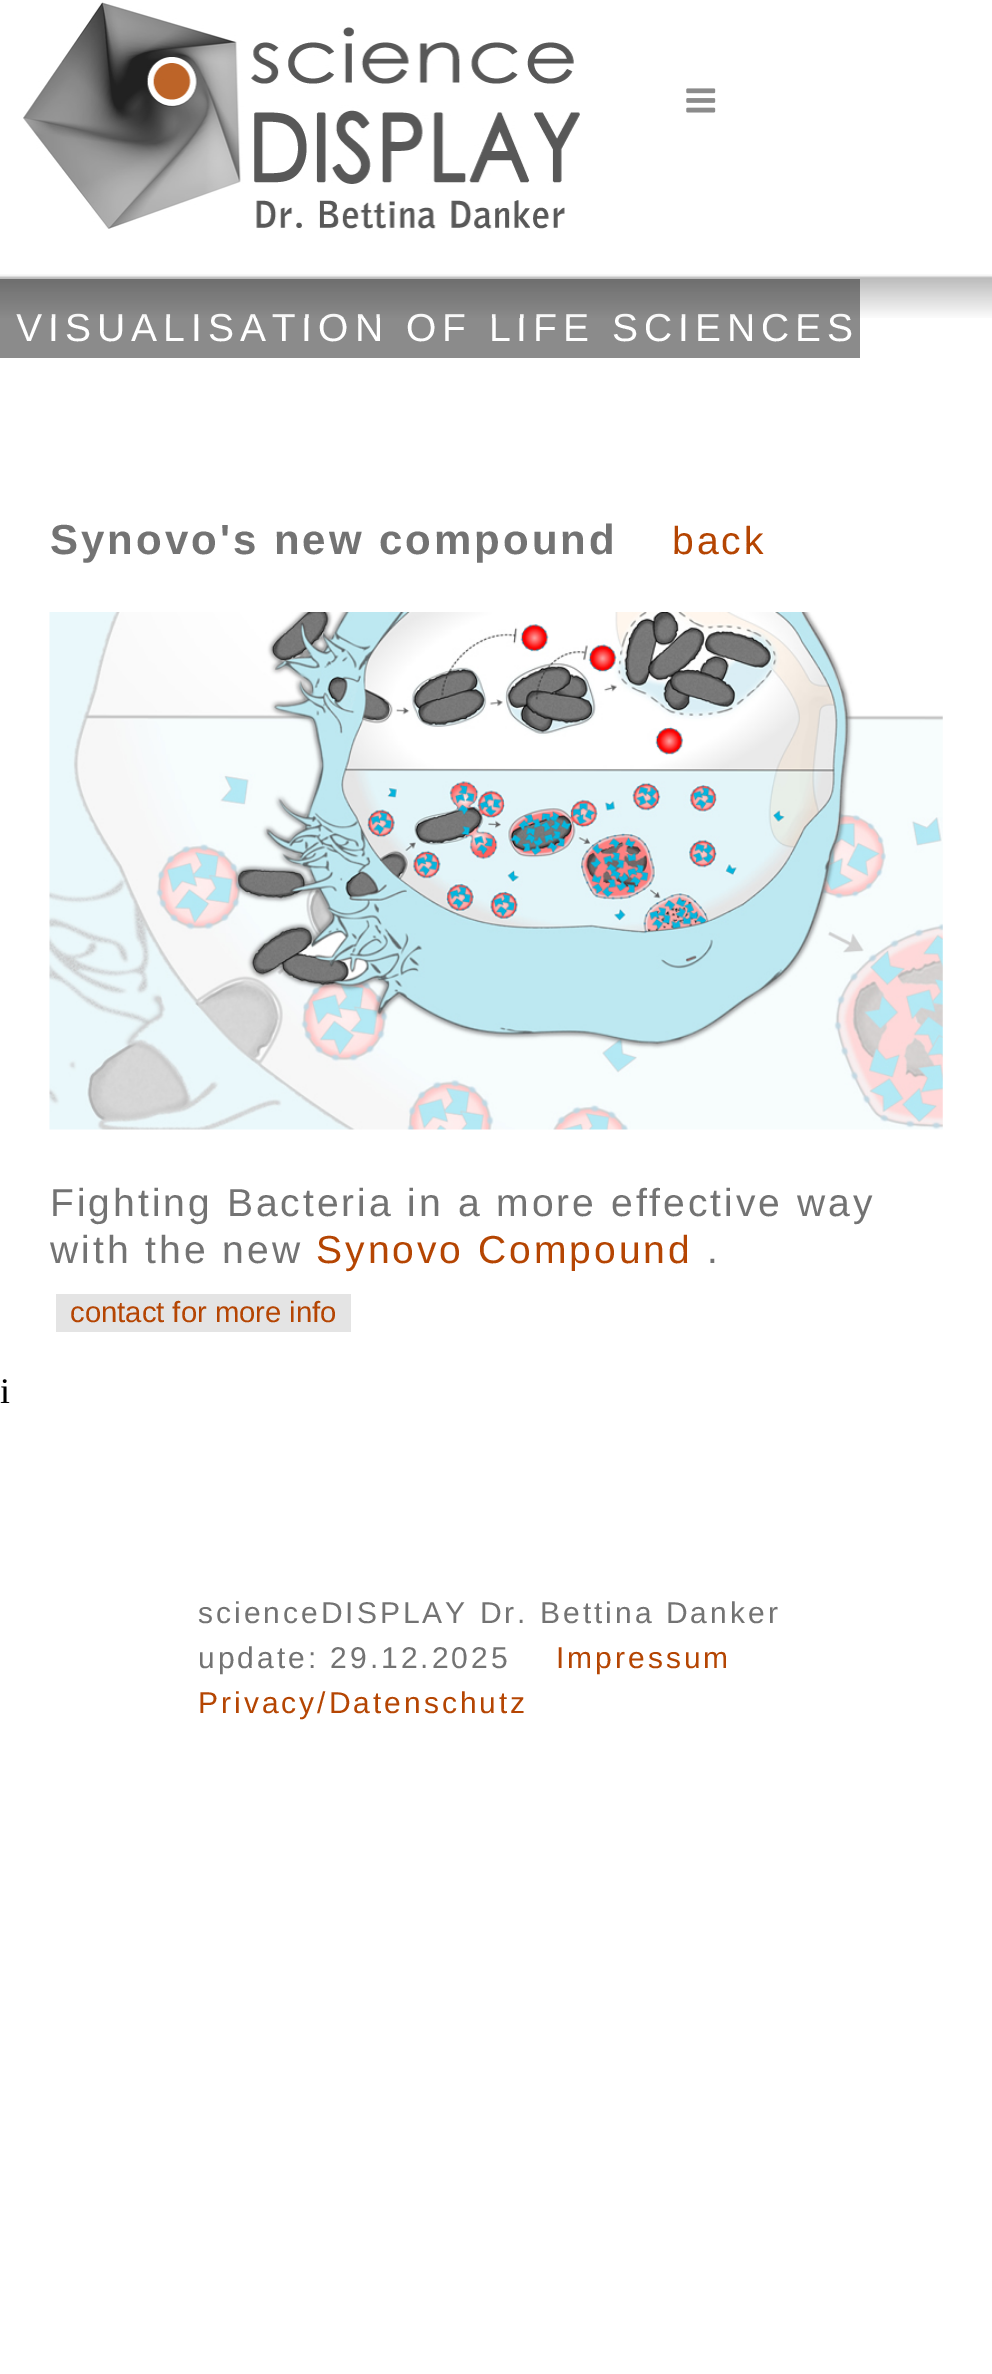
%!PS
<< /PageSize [992 2374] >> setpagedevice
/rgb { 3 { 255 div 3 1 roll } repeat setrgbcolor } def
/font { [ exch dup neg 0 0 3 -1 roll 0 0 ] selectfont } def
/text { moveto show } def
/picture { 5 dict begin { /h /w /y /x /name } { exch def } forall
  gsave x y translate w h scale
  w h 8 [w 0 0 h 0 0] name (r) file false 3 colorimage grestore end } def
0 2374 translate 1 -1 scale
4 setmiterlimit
255 255 255 rgb
0 0 992 2374 rectfill
(img_01.rgb) 23 2 557 227 picture
(img_02.rgb) 686 88 30 25 picture
139 139 139 rgb
0 279 860 79 rectfill
(img_04.rgb) 49 612 894 518 picture
228 228 228 rgb
56 1294 295 38 rectfill
/LiberationSans-Regular 39 font
255 255 255 rgb
16 341 moveto 6 0 (VISUALISATION OF LIFE SCIENCES) ashow
(img_03.rgb) 0 274 992 44 picture
/LiberationSans-Bold 42 font
115 115 115 rgb
50 554 moveto 3 0 (Synovo's new compound) ashow
/LiberationSans-Regular 39 font
181 69 2 rgb
672 554 moveto 3 0 (back) ashow
115 115 115 rgb
50 1216 moveto 3 0 (Fighting Bacteria in a more effective way) ashow
50 1263 moveto 3 0 (with the new) ashow
181 69 2 rgb
316 1263 moveto 3 0 (Synovo Compound) ashow
115 115 115 rgb
707 1263 moveto 3 0 (.) ashow
/LiberationSans-Regular 29.25 font
181 69 2 rgb
(contact for more info) 70 1322 text
/LiberationSerif-Regular 36 font
0 0 0 rgb
(i) 0 1403 text
/LiberationSans-Regular 30 font
115 115 115 rgb
198 1623 moveto 3 0 (scienceDISPLAY Dr. Bettina Danker) ashow
198 1668 moveto 3 0 (update: 29.12.2025) ashow
181 69 2 rgb
556 1668 moveto 3 0 (Impressum) ashow
198 1713 moveto 3 0 (Privacy/Datenschutz) ashow
showpage
